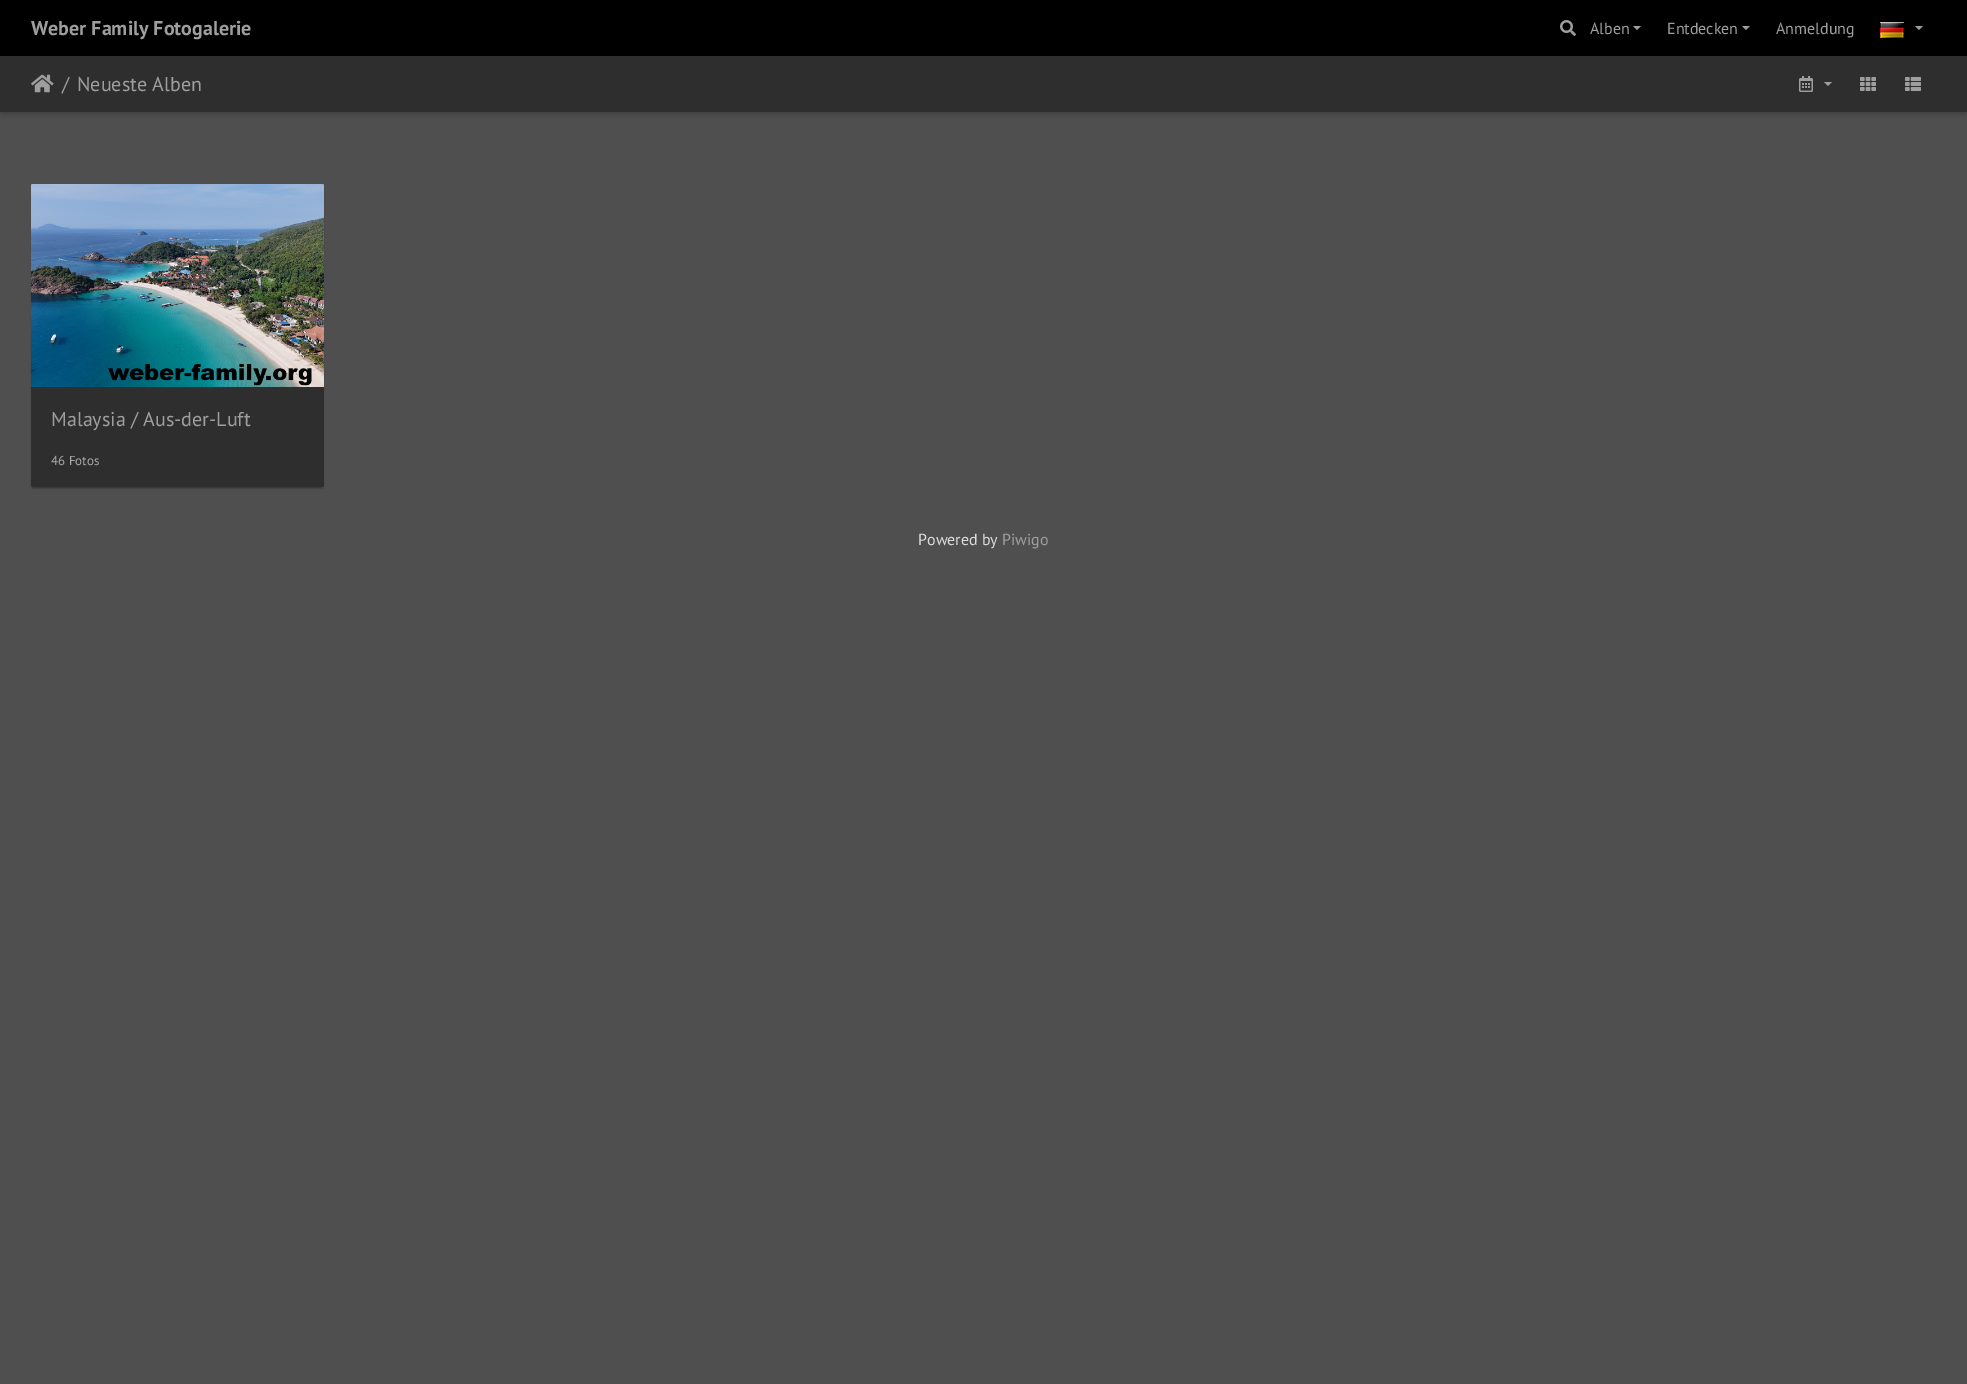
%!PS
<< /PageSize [1967 1384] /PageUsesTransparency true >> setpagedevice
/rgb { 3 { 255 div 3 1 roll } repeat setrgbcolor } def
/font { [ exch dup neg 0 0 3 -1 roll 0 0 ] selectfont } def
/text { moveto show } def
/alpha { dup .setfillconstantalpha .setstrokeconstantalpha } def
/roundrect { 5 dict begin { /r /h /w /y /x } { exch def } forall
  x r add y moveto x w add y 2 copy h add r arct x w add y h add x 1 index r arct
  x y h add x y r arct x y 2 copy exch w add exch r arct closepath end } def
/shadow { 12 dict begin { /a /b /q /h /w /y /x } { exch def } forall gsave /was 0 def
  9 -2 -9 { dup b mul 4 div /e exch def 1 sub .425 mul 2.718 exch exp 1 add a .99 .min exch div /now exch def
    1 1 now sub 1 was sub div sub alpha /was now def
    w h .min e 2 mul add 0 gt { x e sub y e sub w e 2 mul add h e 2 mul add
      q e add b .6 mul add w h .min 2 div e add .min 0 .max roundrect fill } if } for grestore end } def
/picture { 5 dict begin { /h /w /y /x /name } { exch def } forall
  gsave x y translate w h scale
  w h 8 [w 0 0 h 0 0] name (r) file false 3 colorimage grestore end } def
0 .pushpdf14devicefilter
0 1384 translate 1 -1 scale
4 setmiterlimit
79 79 79 rgb
0 0 1967 1384 rectfill
0 0 0 rgb
1 60 1965 54 0 2.5 0.2 shadow
0 0 1967 56 rectfill
(img_01.rgb) 1560 20 16 16 picture
158 158 158 rgb
1633 26 moveto 8 0 rlineto -4 4 rlineto closepath fill
1742 26 moveto 8 0 rlineto -4 4 rlineto closepath fill
(img_02.rgb) 1880 22 24 16 picture
1915 26 moveto 8 0 rlineto -4 4 rlineto closepath fill
46 46 46 rgb
0 56 1967 56 rectfill
(img_03.rgb) 31 74 23 19 picture
(img_04.rgb) 1799 76 14 16 picture
158 158 158 rgb
1824 82 moveto 8 0 rlineto -4 4 rlineto closepath fill
(img_05.rgb) 1860 77 16 14 picture
(img_06.rgb) 1905 77 16 14 picture
0 0 0 rgb
33 189 289 299 0 0.5 0.2 shadow
31 186 293 303 2 1 0.14 shadow
46 46 46 rgb
31 184 293 303 2 roundrect fill
(img_07.rgb) 31 184 293 203 picture
/PTSans-Bold 20 font
158 158 158 rgb
(Weber Family Fotogalerie) 31 35 text
/PTSans-Regular 16 font
(Alben) 1590 34 text
(Entdecken) 1667 34 text
(Anmeldung) 1776 34 text
/PTSans-Regular 20 font
(/) 62 91 text
(Neueste Alben) 77 91 text
(Malaysia / Aus-der-Luft) 51 426 text
/PTSans-Regular 13 font
169 169 169 rgb
(46 Fotos) 51 465 text
/PTSans-Regular 16 font
219 219 219 rgb
(Powered by) 918 545 text
158 158 158 rgb
(Piwigo) 1002 545 text
.poppdf14devicefilter showpage
